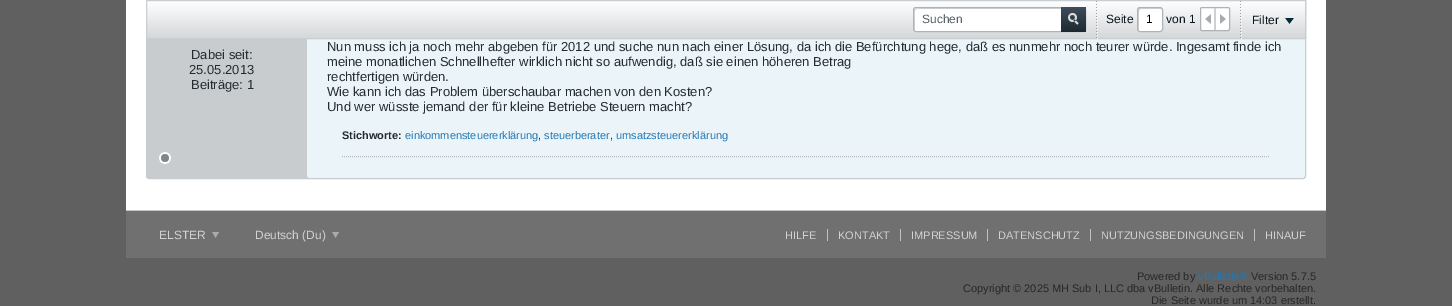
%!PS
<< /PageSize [1452 306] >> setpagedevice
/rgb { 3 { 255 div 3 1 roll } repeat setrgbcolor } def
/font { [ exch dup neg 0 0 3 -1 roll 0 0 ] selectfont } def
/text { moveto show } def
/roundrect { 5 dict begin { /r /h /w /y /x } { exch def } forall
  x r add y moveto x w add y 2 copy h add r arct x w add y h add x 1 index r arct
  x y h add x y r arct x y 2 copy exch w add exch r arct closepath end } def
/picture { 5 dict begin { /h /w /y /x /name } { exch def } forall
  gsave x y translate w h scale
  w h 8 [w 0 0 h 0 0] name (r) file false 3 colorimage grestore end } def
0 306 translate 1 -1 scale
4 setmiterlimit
96 96 96 rgb
0 0 1452 306 rectfill
255 255 255 rgb
126 0 1200 210 rectfill
200 204 206 rgb
146.5 -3.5 1159 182 2.5 roundrect gsave fill grestore
stroke
235 244 249 rgb
307 -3 998 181 3 roundrect fill
gsave 147 1 moveto 1158 0 rlineto 0 37 rlineto -1158 0 rlineto closepath clip newpath
<< /ShadingType 2 /ColorSpace /DeviceRGB /Coords [726 1 726 38] /Extend [true true] /Function << /FunctionType 2 /Domain [0 1] /C0 [0.996 0.996 1] /C1 [0.835 0.847 0.855] /N 1 >> >> shfill grestore
201 206 210 rgb
146.5 0.5 1159 38 rectstroke
255 255 255 rgb
913 7 173 25 3 roundrect fill
213 213 213 rgb
917 9 moveto 168 0 rlineto -2 -1 rlineto -83 0 rlineto -8 0 -84 -1 -85 1 rcurveto -1 0 rlineto 0 21 rlineto 1 1 rlineto 0 -11 rlineto 0 -1 -2 -11 2 -11 rcurveto closepath fill
174 179 182 rgb
913.5 7.5 172 24 2.5 roundrect stroke
gsave 1061 7 moveto 22 0 rlineto 1.5 0 3 1.5 3 3 rcurveto 0 19 rlineto 0 1.5 -1.5 3 -3 3 rcurveto -22 0 rlineto closepath clip newpath
<< /ShadingType 2 /ColorSpace /DeviceRGB /Coords [1074 7 1074 32] /Extend [true true] /Function << /FunctionType 2 /Domain [0 1] /C0 [0.251 0.302 0.353] /C1 [0.11 0.161 0.192] /N 1 >> >> shfill grestore
(img_01.rgb) 1068 13 11 12 picture
(img_02.rgb) 1096 1 1 37 picture
(img_03.rgb) 1097 5 1 34 picture
255 255 255 rgb
1137 7 26 25 3 roundrect fill
213 213 213 rgb
1141 9 moveto 20 0 rlineto 1 0 rlineto -0.5 -0.5 -1 -1 -2 -1 rcurveto -20 0 rlineto -1 0 -2 1 -2 2 rcurveto 0 19 rlineto 0 1 0.5 1.5 1 2 rcurveto 0 -17 rlineto 0 -1 -0.5 -5 2 -5 rcurveto closepath fill
174 179 182 rgb
1137.5 7.5 25 24 2.5 roundrect stroke
255 255 255 rgb
1200.5 7.5 29 23 1.5 roundrect gsave fill grestore
174 179 182 rgb
stroke
205 209 212 rgb
1214 8 2 22 rectfill
(img_04.rgb) 1205 14 6 10 picture
(img_05.rgb) 1220 14 6 10 picture
(img_02.rgb) 1240 1 1 37 picture
(img_03.rgb) 1241 5 1 34 picture
(img_06.rgb) 1285 18 9 6 picture
(img_07.rgb) 159 152 12 12 picture
183 188 190 rgb
[1 1] 0 setdash
342 156.5 moveto 928 0 rlineto stroke
112 112 112 rgb
126 211 1200 47 rectfill
196 196 196 rgb
126 210 1200 1 rectfill
(img_08.rgb) 212 232 7 6 picture
(img_08.rgb) 332 232 7 6 picture
194 194 194 rgb
827 229 1 12 rectfill
900 229 1 12 rectfill
987 229 1 12 rectfill
1090 229 1 12 rectfill
1254 229 1 12 rectfill
/LiberationSans-Regular 12 font
85 96 101 rgb
(Suchen) 922 23 text
9 22 27 rgb
(Seite) 1106 23 text
0 0 0 rgb
(1) 1146 23 text
9 22 27 rgb
(von 1) 1166 23 text
(Filter) 1252 24 text
/LiberationSans-Regular 13 font
37 44 47 rgb
(Dabei seit:) 191 59 text
(25.05.2013) 189 74 text
(Beiträge: 1) 191 89 text
(Nun muss ich ja noch mehr abgeben für 2012 und suche nun nach einer Lösung, da ich die Befürchtung hege, daß es nunmehr noch teurer würde. Ingesamt finde ich) 327 51 text
(meine monatlichen Schnellhefter wirklich nicht so aufwendig, daß sie einen höheren Betrag) 327 66 text
(rechtfertigen würden.) 327 81 text
(Wie kann ich das Problem überschaubar machen von den Kosten?) 327 96 text
(Und wer wüsste jemand der für kleine Betriebe Steuern macht?) 327 111 text
/LiberationSans-Bold 11 font
(Stichworte:) 342 139 text
/LiberationSans-Regular 11 font
35 121 181 rgb
(einkommensteuererklärung) 405 139 text
37 44 47 rgb
(,) 538 139 text
35 121 181 rgb
(steuerberater) 544 139 text
37 44 47 rgb
(,) 610 139 text
35 121 181 rgb
(umsatzsteuererklärung) 616 139 text
/LiberationSans-Regular 12 font
210 210 210 rgb
(ELSTER) 159 239 text
(Deutsch \(Du\)) 255 239 text
/LiberationSans-Regular 11 font
(HILFE) 785 239 text
(KONTAKT) 838 239 text
(IMPRESSUM) 911 239 text
(DATENSCHUTZ) 998 239 text
(NUTZUNGSBEDINGUNGEN) 1101 239 text
(HINAUF) 1265 239 text
39 39 39 rgb
(Powered by) 1137 280 text
35 121 181 rgb
(vBulletin®) 1198 280 text
39 39 39 rgb
(Version 5.7.5) 1251 280 text
(Copyright © 2025 MH Sub I, LLC dba vBulletin. Alle Rechte vorbehalten.) 963 292 text
(Die Seite wurde um 14:03 erstellt.) 1151 304 text
showpage
